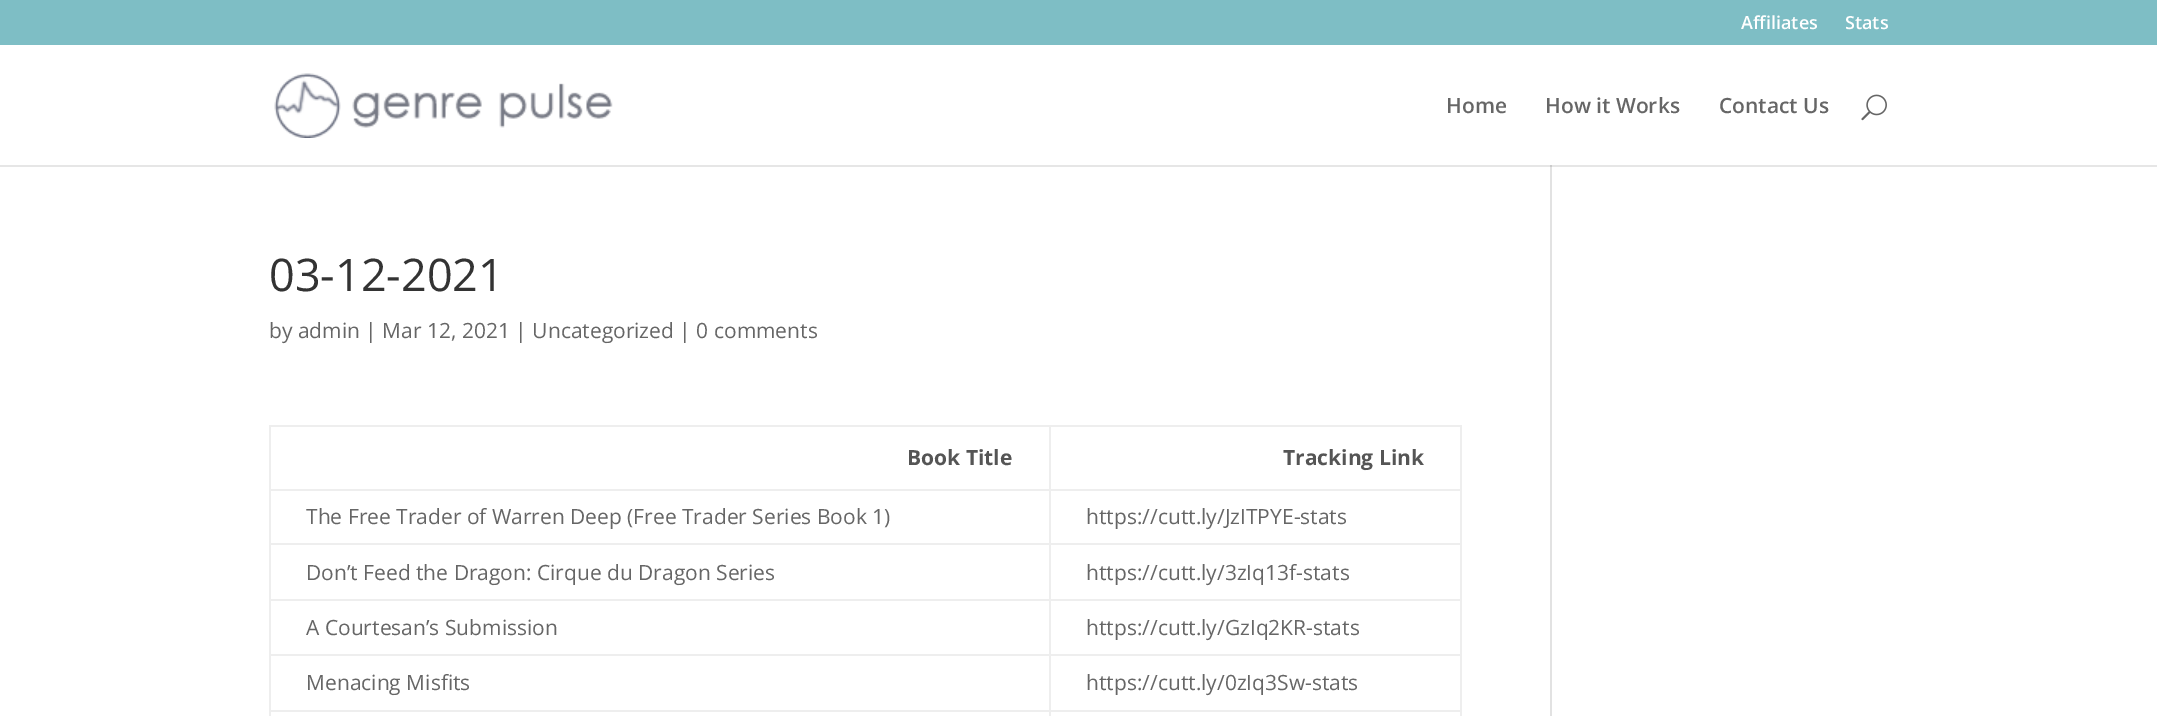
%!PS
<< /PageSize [2157 716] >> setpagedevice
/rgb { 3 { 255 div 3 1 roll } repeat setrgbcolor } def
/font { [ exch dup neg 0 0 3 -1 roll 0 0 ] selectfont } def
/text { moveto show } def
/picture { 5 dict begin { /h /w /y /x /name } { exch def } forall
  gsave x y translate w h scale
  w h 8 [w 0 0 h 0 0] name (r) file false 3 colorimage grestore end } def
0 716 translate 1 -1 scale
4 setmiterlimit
255 255 255 rgb
0 0 2157 716 rectfill
230 230 230 rgb
0 165 2157 2 rectfill
126 190 197 rgb
0 0 2157 45 rectfill
(img_01.rgb) 274 73 339 65 picture
(img_02.rgb) 1861 94 26 27 picture
238 238 238 rgb
269 425 1192 2 rectfill
1460 425 2 291 rectfill
269 425 2 291 rectfill
1049 489 412 2 rectfill
1049 543 412 2 rectfill
1049 599 412 2 rectfill
1049 654 412 2 rectfill
1049 710 412 2 rectfill
1049 710 2 6 rectfill
269 710 781 2 rectfill
1049 654 2 57 rectfill
269 654 781 2 rectfill
1049 599 2 57 rectfill
269 599 781 2 rectfill
1049 543 2 57 rectfill
269 543 781 2 rectfill
1049 489 2 56 rectfill
269 489 781 2 rectfill
1049 425 2 66 rectfill
226 226 226 rgb
1550 165 2 551 rectfill
203 203 203 rgb
1550 165 2 2 rectfill
/OpenSans-SemiBold 18 font
255 255 255 rgb
(Affiliates) 1741 29 text
(Stats) 1845 29 text
/OpenSans-SemiBold 21 font
102 102 102 rgb
(Home) 1446 113 text
(How it Works) 1545 113 text
(Contact Us) 1719 113 text
/OpenSans-Regular 45 font
51 51 51 rgb
(03-12-2021) 269 291 text
/OpenSans-Regular 21 font
102 102 102 rgb
(by admin | Mar 12, 2021 | Uncategorized | 0 comments) 269 338 text
/OpenSans-Bold 21 font
85 85 85 rgb
(Book Title) 907 465 text
(Tracking Link) 1283 465 text
/OpenSans-Regular 21 font
102 102 102 rgb
(The Free Trader of Warren Deep \(Free Trader Series Book 1\)) 306 524 text
(https://cutt.ly/JzITPYE-stats) 1086 524 text
(Don’t Feed the Dragon: Cirque du Dragon Series) 306 580 text
(https://cutt.ly/3zIq13f-stats) 1086 580 text
(A Courtesan’s Submission) 306 635 text
(https://cutt.ly/GzIq2KR-stats) 1086 635 text
(Menacing Misfits) 306 690 text
(https://cutt.ly/0zIq3Sw-stats) 1086 690 text
showpage
